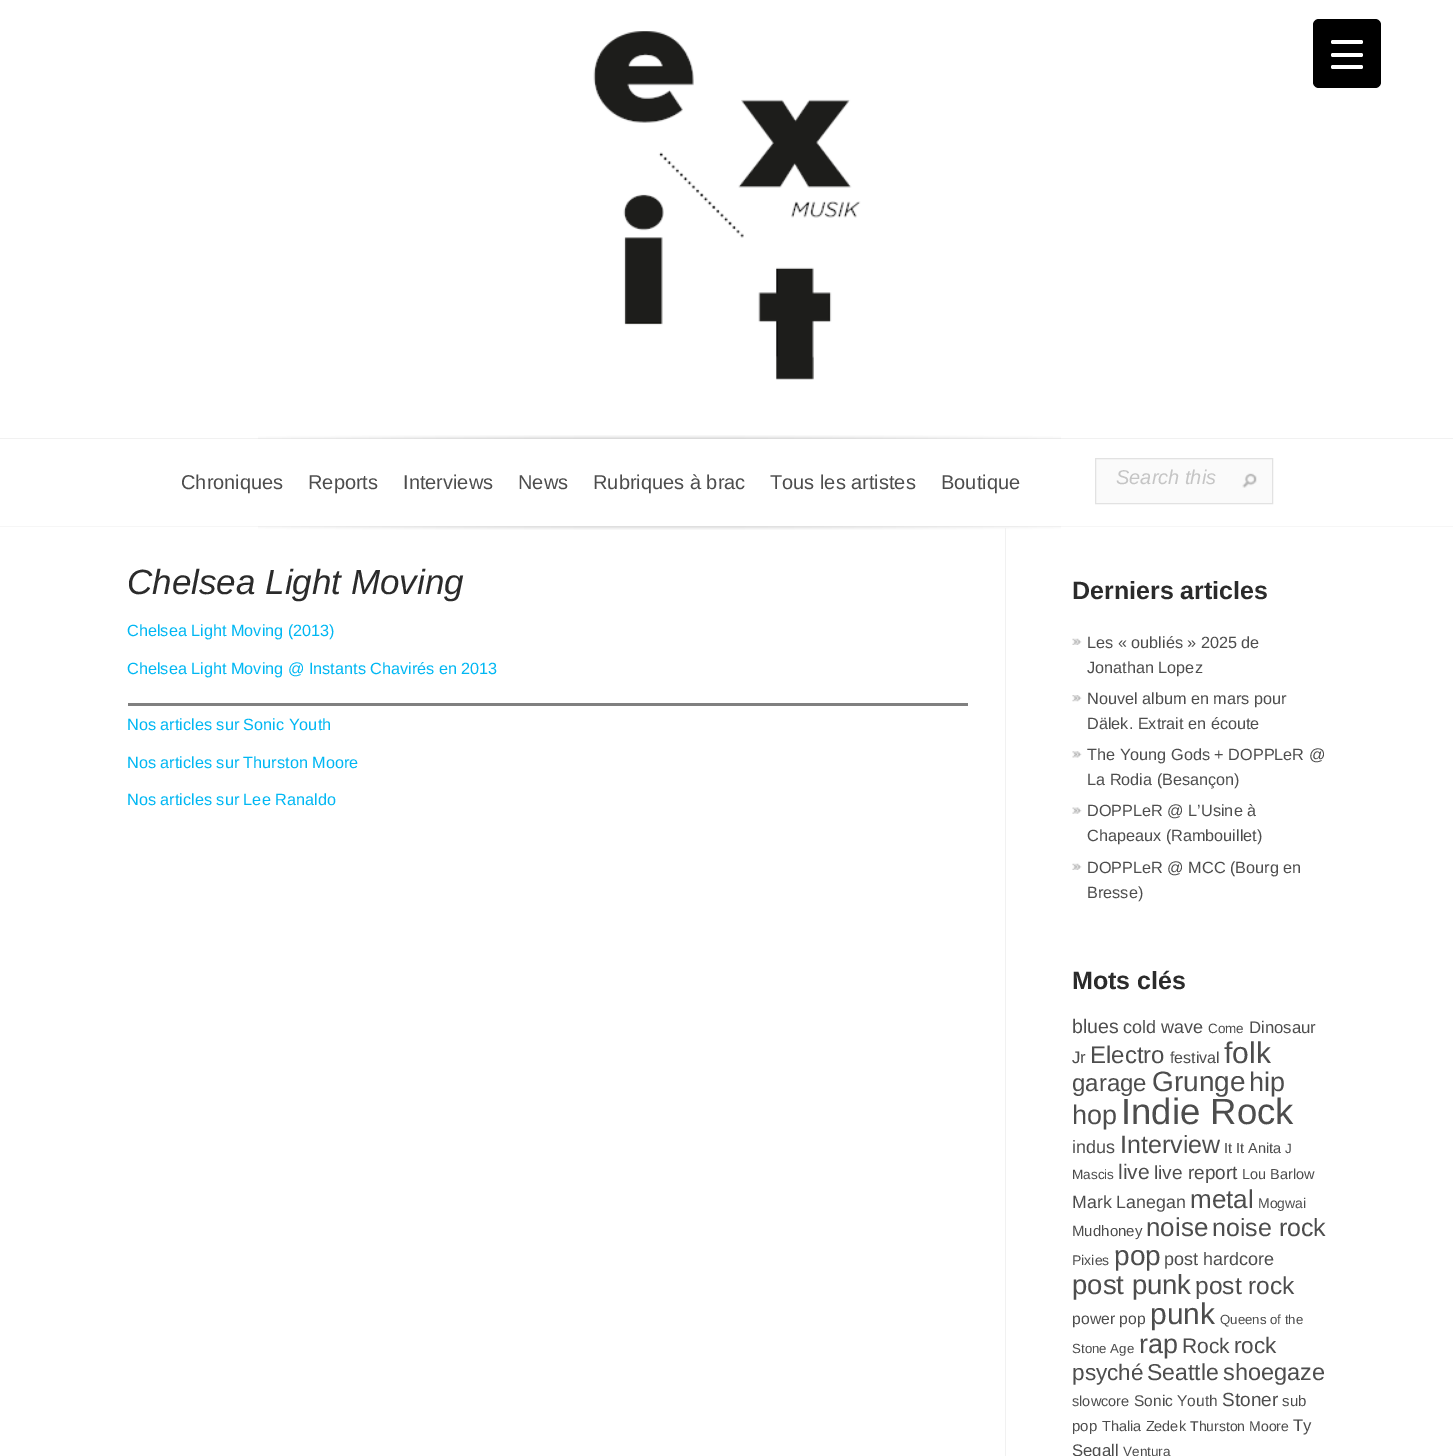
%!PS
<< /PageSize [1453 1456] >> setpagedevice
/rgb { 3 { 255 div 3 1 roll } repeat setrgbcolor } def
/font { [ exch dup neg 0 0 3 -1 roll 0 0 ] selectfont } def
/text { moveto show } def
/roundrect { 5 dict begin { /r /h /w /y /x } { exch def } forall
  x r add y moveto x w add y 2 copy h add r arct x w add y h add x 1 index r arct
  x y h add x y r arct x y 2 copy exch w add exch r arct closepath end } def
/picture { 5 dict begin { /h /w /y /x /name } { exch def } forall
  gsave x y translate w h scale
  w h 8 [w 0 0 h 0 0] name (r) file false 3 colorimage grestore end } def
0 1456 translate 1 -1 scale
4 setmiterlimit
255 255 255 rgb
0 0 1453 1456 rectfill
0 0 0 rgb
1313 19 68 69 6 roundrect fill
255 255 255 rgb
1331 53 32 4 2 roundrect fill
1331 40 32 4 2 roundrect fill
1331 65 32 4 2 roundrect fill
(img_01.rgb) 593 31 268 349 picture
241 241 241 rgb
0 438 1453 1 rectfill
246 246 246 rgb
0 526 1453 1 rectfill
(img_02.rgb) 258 435 803 4 picture
250 250 250 rgb
1095.5 458.5 moveto 177 0 rlineto 0 45 rlineto -177 0 rlineto closepath gsave fill grestore
226 226 226 rgb
stroke
(img_03.rgb) 1242 473 15 15 picture
(img_04.rgb) 258 526 803 4 picture
241 241 241 rgb
1005 528 1 928 rectfill
128 128 128 rgb
128 703 840 3 rectfill
(img_05.rgb) 1072 638 10 7 picture
(img_06.rgb) 1072 695 10 7 picture
(img_07.rgb) 1072 751 10 7 picture
(img_08.rgb) 1072 807 10 7 picture
(img_05.rgb) 1072 863 10 7 picture
/LiberationSans-Regular 20 font
77 77 77 rgb
(Chroniques) 181 489 text
(Reports) 308 489 text
(Interviews) 403 489 text
(News) 518 489 text
(Rubriques à brac) 593 489 text
(Tous les artistes) 770 489 text
(Boutique) 941 489 text
/LiberationSans-Italic 20 font
197 197 197 rgb
(Search this) 1116 484 text
/LiberationSans-Italic 35 font
43 43 43 rgb
(Chelsea Light Moving) 127 594 text
/LiberationSans-Regular 16.25 font
0 183 243 rgb
(Chelsea Light Moving \(2013\)) 127 636 text
(Chelsea Light Moving @ Instants Chavirés en 2013) 127 674 text
(Nos articles sur Sonic Youth) 127 730 text
(Nos articles sur Thurston Moore) 127 768 text
(Nos articles sur Lee Ranaldo) 127 805 text
/LiberationSans-Bold 25 font
43 43 43 rgb
(Derniers articles) 1072 599 text
/LiberationSans-Regular 16.25 font
77 77 77 rgb
(Les « oubliés » 2025 de) 1087 648 text
(Jonathan Lopez) 1087 673 text
(Nouvel album en mars pour) 1087 704 text
(Dälek. Extrait en écoute) 1087 729 text
(The Young Gods + DOPPLeR @) 1087 760 text
(La Rodia \(Besançon\)) 1087 785 text
(DOPPLeR @ L’Usine à) 1087 816 text
(Chapeaux \(Rambouillet\)) 1087 841 text
(DOPPLeR @ MCC \(Bourg en) 1087 873 text
(Bresse\)) 1087 898 text
/LiberationSans-Bold 25 font
43 43 43 rgb
(Mots clés) 1072 989 text
/LiberationSans-Regular 19.5 font
77 77 77 rgb
(blues) 1072 1033 text
/LiberationSans-Regular 18 font
(cold wave) 1123 1033 text
/LiberationSans-Regular 13.5 font
(Come) 1208 1033 text
/LiberationSans-Regular 16.75 font
(Dinosaur) 1249 1033 text
(Jr) 1072 1063 text
/LiberationSans-Regular 24 font
(Electro) 1090 1063 text
/LiberationSans-Regular 16 font
(festival) 1170 1063 text
/LiberationSans-Regular 30 font
(folk) 1224 1063 text
/LiberationSans-Regular 24 font
(garage) 1072 1091 text
/LiberationSans-Regular 28 font
(Grunge) 1152 1091 text
/LiberationSans-Regular 27 font
(hip) 1249 1091 text
(hop) 1072 1124 text
/LiberationSans-Regular 36.5 font
(Indie Rock) 1121 1124 text
/LiberationSans-Regular 18 font
(indus) 1072 1153 text
/LiberationSans-Regular 25 font
(Interview) 1120 1153 text
/LiberationSans-Regular 14.5 font
(It It Anita) 1224 1153 text
/LiberationSans-Regular 13.5 font
(J) 1285 1153 text
(Mascis) 1072 1179 text
/LiberationSans-Regular 21 font
(live) 1118 1179 text
/LiberationSans-Regular 19 font
(live report) 1154 1179 text
/LiberationSans-Regular 14.5 font
(Lou Barlow) 1242 1179 text
/LiberationSans-Regular 17.75 font
(Mark Lanegan) 1072 1208 text
/LiberationSans-Regular 26 font
(metal) 1190 1208 text
/LiberationSans-Regular 14 font
(Mogwai) 1258 1208 text
/LiberationSans-Regular 15 font
(Mudhoney) 1072 1236 text
/LiberationSans-Regular 26 font
(noise) 1146 1236 text
/LiberationSans-Regular 25 font
(noise rock) 1212 1236 text
/LiberationSans-Regular 14 font
(Pixies) 1072 1265 text
/LiberationSans-Regular 28 font
(pop) 1114 1265 text
/LiberationSans-Regular 18 font
(post hardcore) 1164 1265 text
/LiberationSans-Regular 27.5 font
(post punk) 1072 1294 text
/LiberationSans-Regular 24.5 font
(post rock) 1195 1294 text
/LiberationSans-Regular 15.75 font
(power pop) 1072 1324 text
/LiberationSans-Regular 30 font
(punk) 1150 1324 text
/LiberationSans-Regular 13.25 font
(Queens of the) 1220 1324 text
(Stone Age) 1072 1353 text
/LiberationSans-Regular 27 font
(rap) 1139 1353 text
/LiberationSans-Regular 21 font
(Rock) 1182 1353 text
/LiberationSans-Regular 22.5 font
(rock) 1234 1353 text
(psyché) 1072 1380 text
/LiberationSans-Regular 23 font
(Seattle) 1147 1380 text
/LiberationSans-Regular 23.5 font
(shoegaze) 1223 1380 text
/LiberationSans-Regular 14.5 font
(slowcore) 1072 1406 text
/LiberationSans-Regular 15.5 font
(Sonic Youth) 1134 1406 text
/LiberationSans-Regular 19 font
(Stoner) 1222 1406 text
/LiberationSans-Regular 15 font
(sub) 1282 1406 text
(pop) 1072 1431 text
/LiberationSans-Regular 14.5 font
(Thalia Zedek) 1102 1431 text
/LiberationSans-Regular 14 font
(Thurston Moore) 1190 1431 text
/LiberationSans-Regular 16.75 font
(Ty) 1293 1431 text
(Segall) 1072 1456 text
/LiberationSans-Regular 13.5 font
(Ventura) 1123 1456 text
showpage
